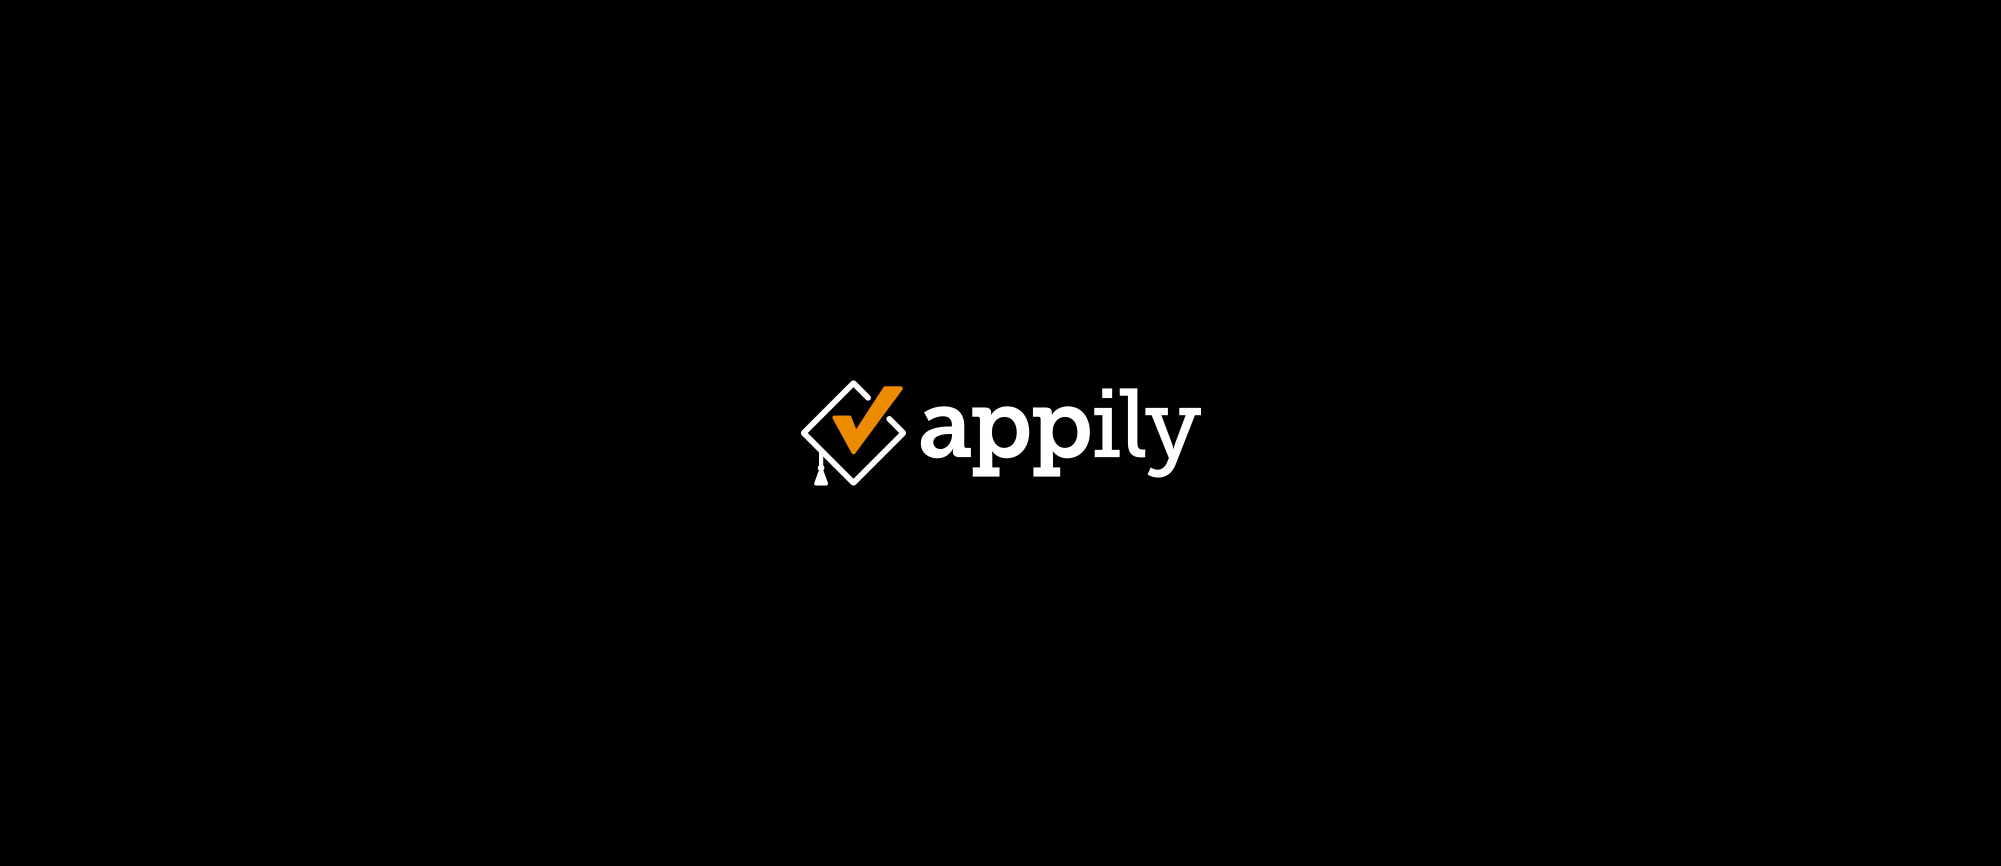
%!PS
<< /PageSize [2001 866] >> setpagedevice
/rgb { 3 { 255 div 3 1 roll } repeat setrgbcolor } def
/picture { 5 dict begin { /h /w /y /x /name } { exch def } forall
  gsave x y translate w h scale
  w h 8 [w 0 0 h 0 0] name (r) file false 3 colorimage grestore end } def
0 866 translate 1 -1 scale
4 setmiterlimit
0 0 0 rgb
0 0 2001 866 rectfill
(img_01.rgb) 800 380 401 106 picture
showpage
